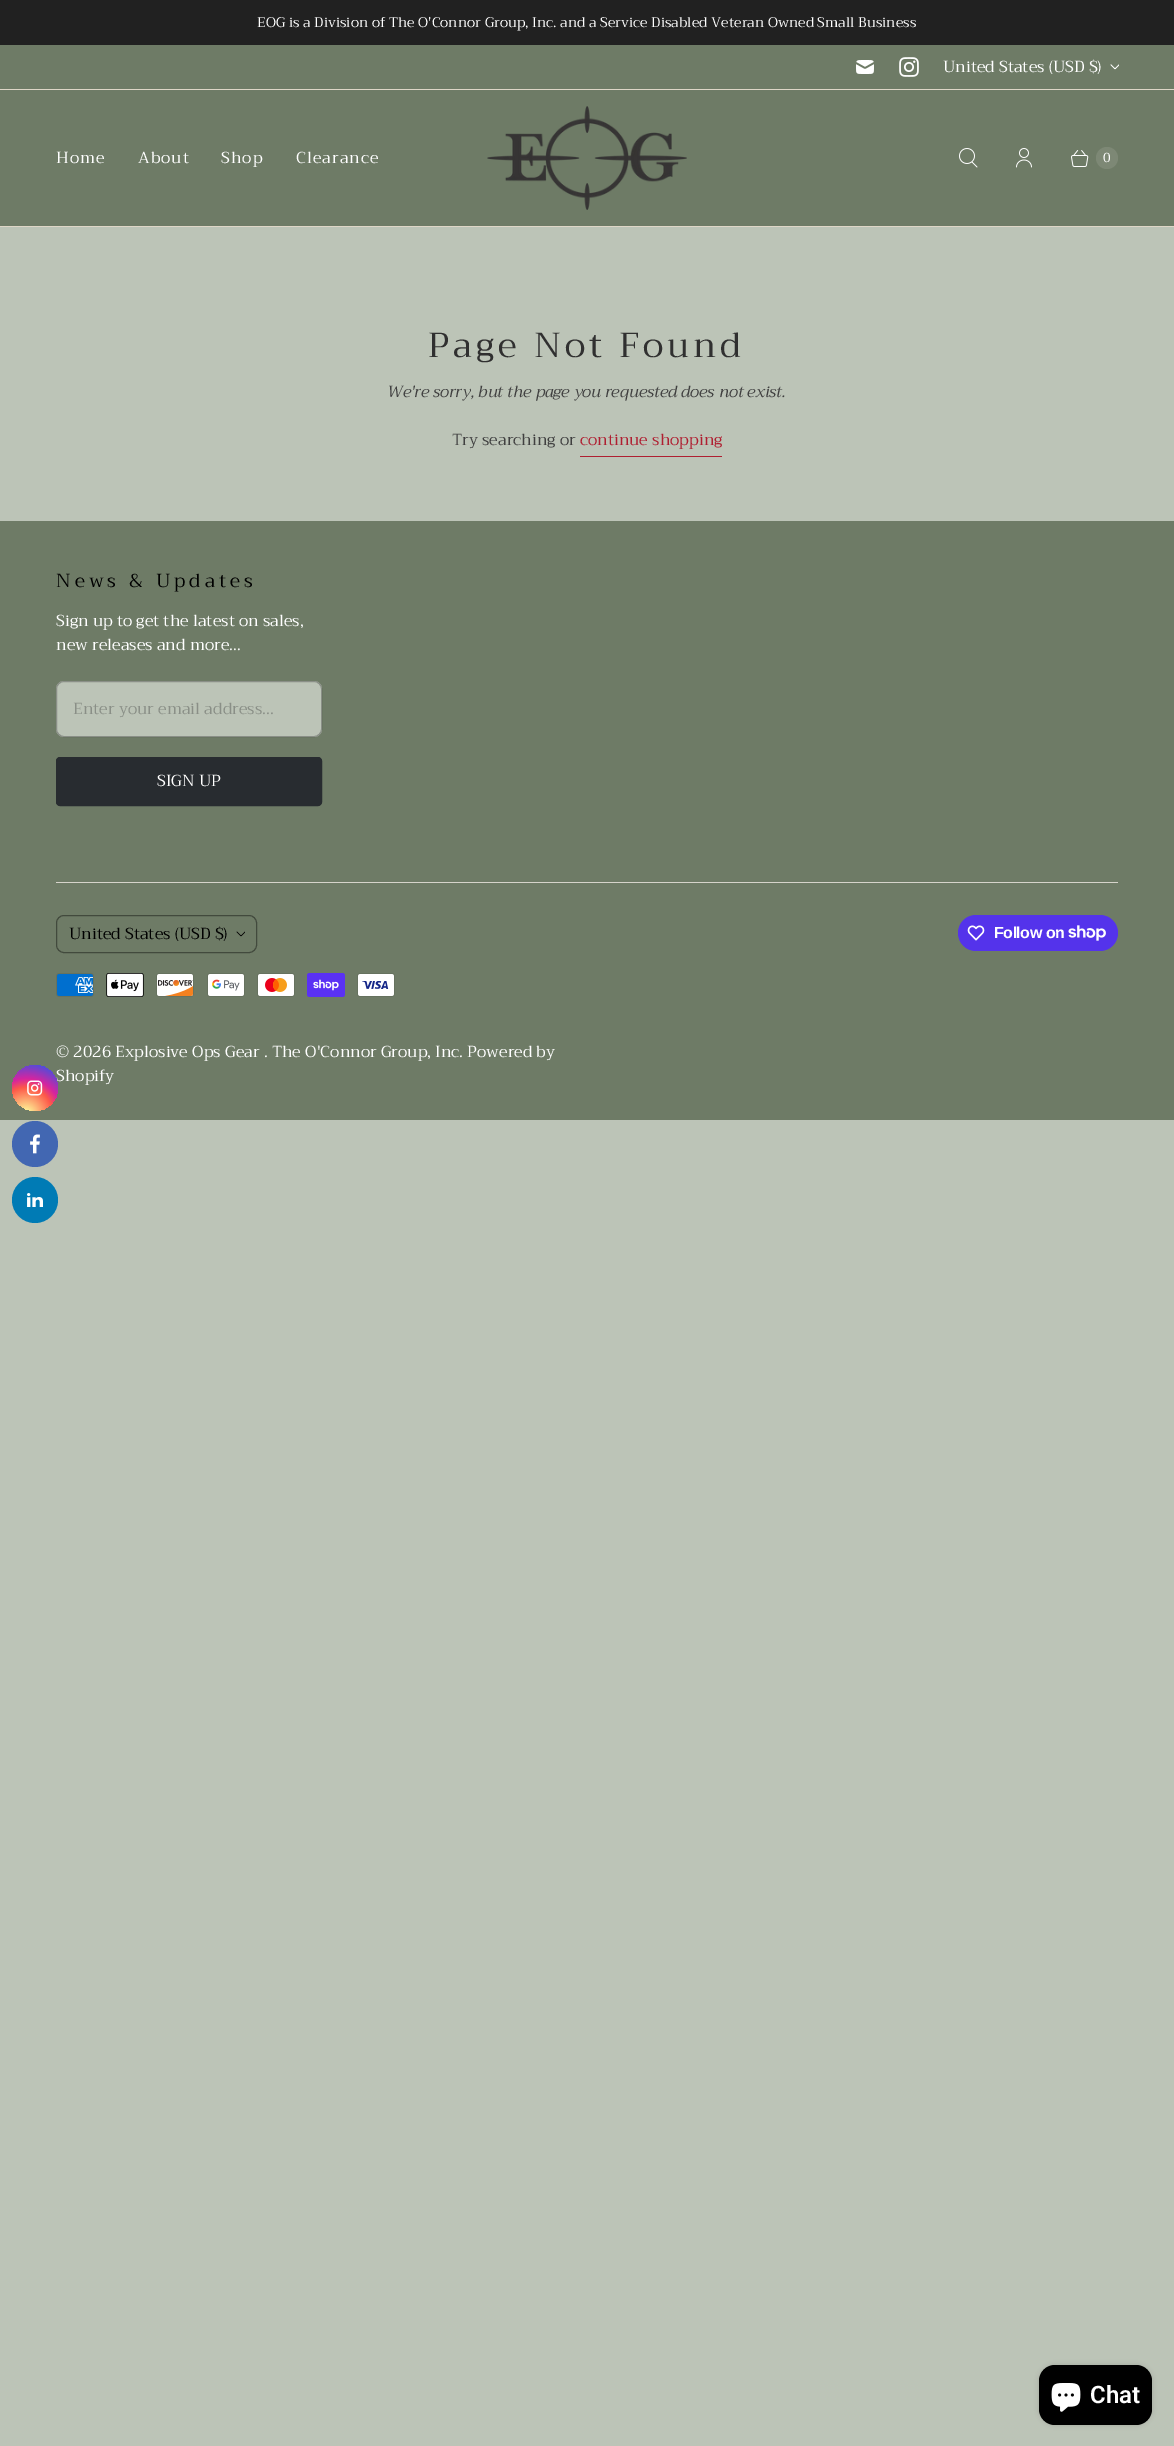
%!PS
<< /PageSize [1174 2446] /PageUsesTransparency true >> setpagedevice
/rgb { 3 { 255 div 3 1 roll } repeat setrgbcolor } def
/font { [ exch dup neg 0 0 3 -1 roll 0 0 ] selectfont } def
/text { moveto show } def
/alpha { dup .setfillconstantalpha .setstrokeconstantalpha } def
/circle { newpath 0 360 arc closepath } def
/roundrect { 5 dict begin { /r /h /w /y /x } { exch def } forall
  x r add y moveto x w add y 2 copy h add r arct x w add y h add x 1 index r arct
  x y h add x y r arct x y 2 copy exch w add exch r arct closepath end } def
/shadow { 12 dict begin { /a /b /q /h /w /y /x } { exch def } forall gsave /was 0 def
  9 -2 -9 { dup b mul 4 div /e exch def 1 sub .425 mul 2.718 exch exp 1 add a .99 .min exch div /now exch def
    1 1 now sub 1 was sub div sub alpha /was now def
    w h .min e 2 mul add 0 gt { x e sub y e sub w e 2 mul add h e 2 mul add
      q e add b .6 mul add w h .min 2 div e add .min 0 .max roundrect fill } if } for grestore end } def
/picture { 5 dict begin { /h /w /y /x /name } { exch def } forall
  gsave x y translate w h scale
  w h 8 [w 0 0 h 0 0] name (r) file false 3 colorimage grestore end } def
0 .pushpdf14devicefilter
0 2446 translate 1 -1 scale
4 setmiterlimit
188 196 183 rgb
0 0 1174 2446 rectfill
33 33 33 rgb
0 0 1174 45 rectfill
110 123 102 rgb
0 45 1174 44 rectfill
222 214 199 rgb
0 89 1174 1 rectfill
(img_01.rgb) 856 60 18 14 picture
(img_02.rgb) 899 57 20 20 picture
(img_03.rgb) 1110 64 9 6 picture
110 123 102 rgb
0 90 1174 136 rectfill
222 214 199 rgb
0 226 1174 1 rectfill
(img_04.rgb) 487 106 200 104 picture
(img_05.rgb) 959 148 19 20 picture
(img_06.rgb) 1016 148 16 20 picture
(img_07.rgb) 1071 150 18 17 picture
125 136 117 rgb
1107 158 11 circle fill
175 31 49 rgb
580 456 142 1 rectfill
110 123 102 rgb
0 521 1174 599 rectfill
188 196 183 rgb
56 681 266 56 8 roundrect fill
0.4 alpha
64 64 64 rgb
56.5 681.5 265 55 7.5 roundrect stroke
1 alpha
40 44 48 rgb
56.5 757.5 265 48 3.5 roundrect gsave fill grestore
stroke
214 212 203 rgb
56 882 1062 1 rectfill
66 74 61 rgb
56.5 915.5 200 37 7.5 roundrect stroke
(img_08.rgb) 236 931 9 6 picture
(img_09.rgb) 56 973 38 24 picture
(img_10.rgb) 106 973 38 24 picture
(img_11.rgb) 156 973 38 24 picture
(img_12.rgb) 207 973 38 24 picture
(img_13.rgb) 257 973 38 24 picture
(img_14.rgb) 307 973 38 24 picture
(img_15.rgb) 357 973 38 24 picture
84 51 235 rgb
958 915 160 36 18 roundrect fill
(img_16.rgb) 967 925 18 16 picture
(img_17.rgb) 1068 925 38 16 picture
66 103 178 rgb
35 1144 23 circle fill
(img_19.rgb) 30 1134 10 20 picture
0 123 181 rgb
35 1200 23 circle fill
(img_20.rgb) 27 1193 16 14 picture
0 0 0 rgb
1039 2365 113 60 16 2.5 0.15 shadow
1039 2365 113 60 16 roundrect fill
(img_21.rgb) 1051 2383 30 29 picture
/Trirong-Regular 14 font
255 255 255 rgb
(EOG is a Division of The O'Connor Group, Inc. and a Service Disabled Veteran Owned Small Business) 257 27 text
/Trirong-Regular 16 font
(United States \(USD $\)) 943 72 text
56 163 moveto 1 0 (Home) ashow
138 163 moveto 1 0 (About) ashow
221 163 moveto 1 0 (Shop) ashow
296 163 moveto 1 0 (Clearance) ashow
/Trirong-Regular 13 font
(0) 1103 162 text
/Trirong-Regular 34.75 font
48 48 48 rgb
428 357 moveto 4 0 (Page Not Found) ashow
/Trirong-Italic 16 font
64 64 64 rgb
(We're sorry, but the page you requested does not exist.) 387 397 text
/Trirong-Regular 16 font
(Try searching or) 452 445 text
175 31 49 rgb
(continue shopping) 580 445 text
/Trirong-Regular 18.75 font
0 0 0 rgb
56 587 moveto 4 0 (News & Updates) ashow
/Trirong-Regular 16 font
255 255 255 rgb
(Sign up to get the latest on sales,) 56 626 text
(new releases and more…) 56 650 text
138 143 135 rgb
(Enter your email address...) 73 714 text
255 255 255 rgb
(SIGN UP) 157 786 text
0 0 0 rgb
(United States \(USD $\)) 69 939 text
255 255 255 rgb
(© 2026 Explosive Ops Gear . The O'Connor Group, Inc. Powered by) 56 1057 text
(Shopify) 56 1081 text
/LiberationSans-Bold 16 font
994 938 moveto -0.5 0 (Follow on) ashow
gsave 35 1088 23 circle clip newpath 26 1114 translate 59 59 scale
<< /ShadingType 3 /ColorSpace /DeviceRGB /Coords [0 0 0 0 0 1] /Extend [true true] /Function << /FunctionType 3 /Domain [0 1] /Functions [<< /FunctionType 2 /Domain [0 1] /C0 [0.992 0.957 0.592] /C1 [0.992 0.957 0.592] /N 1 >> << /FunctionType 2 /Domain [0 1] /C0 [0.992 0.957 0.592] /C1 [0.992 0.349 0.286] /N 1 >> << /FunctionType 2 /Domain [0 1] /C0 [0.992 0.349 0.286] /C1 [0.839 0.141 0.624] /N 1 >> << /FunctionType 2 /Domain [0 1] /C0 [0.839 0.141 0.624] /C1 [0.157 0.353 0.922] /N 1 >> << /FunctionType 2 /Domain [0 1] /C0 [0.157 0.353 0.922] /C1 [0.157 0.353 0.922] /N 1 >>] /Bounds [0.05 0.45 0.6 0.95] /Encode [0 1 0 1 0 1 0 1 0 1] >> >> shfill grestore
(img_18.rgb) 27 1080 16 16 picture
/Roboto-SemiBold 24 font
(Chat) 1090 2403 text
.poppdf14devicefilter showpage
